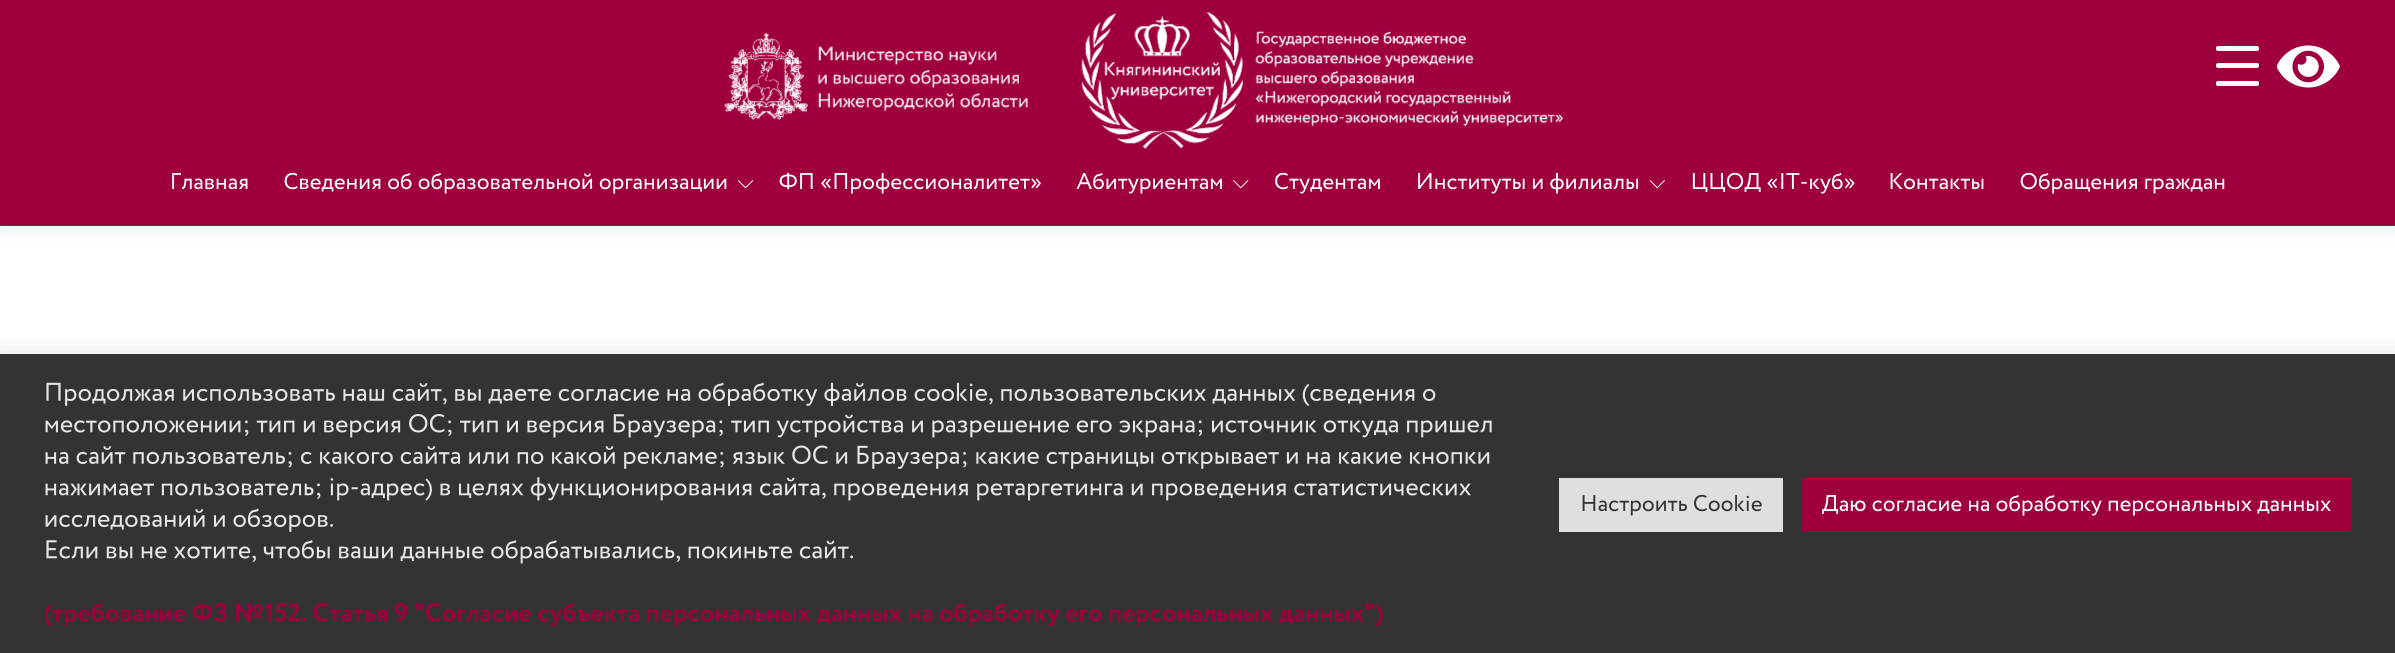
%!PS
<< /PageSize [2395 653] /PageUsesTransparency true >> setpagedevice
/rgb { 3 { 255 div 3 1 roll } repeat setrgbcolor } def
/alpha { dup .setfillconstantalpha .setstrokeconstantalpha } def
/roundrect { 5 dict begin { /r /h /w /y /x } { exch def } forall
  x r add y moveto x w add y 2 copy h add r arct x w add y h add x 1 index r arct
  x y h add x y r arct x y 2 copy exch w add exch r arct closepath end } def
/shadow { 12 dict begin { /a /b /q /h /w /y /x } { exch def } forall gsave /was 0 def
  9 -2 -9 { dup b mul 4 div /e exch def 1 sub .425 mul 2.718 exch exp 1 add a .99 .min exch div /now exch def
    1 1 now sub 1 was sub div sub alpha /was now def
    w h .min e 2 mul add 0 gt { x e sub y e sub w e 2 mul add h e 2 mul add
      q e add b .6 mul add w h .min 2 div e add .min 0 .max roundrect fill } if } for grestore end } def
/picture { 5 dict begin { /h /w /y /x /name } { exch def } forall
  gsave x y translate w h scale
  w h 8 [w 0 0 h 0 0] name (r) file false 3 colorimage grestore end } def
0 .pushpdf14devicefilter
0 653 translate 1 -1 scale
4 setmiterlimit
255 255 255 rgb
0 0 2395 653 rectfill
50 50 50 rgb
0 4 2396 225 0 7 0.08 shadow
159 0 61 rgb
0 0 2395 226 rectfill
(img_01.rgb) 723 12 840 137 picture
(img_02.rgb) 2277 45 63 43 picture
(img_03.rgb) 172 173 76 17 picture
(img_04.rgb) 284 172 443 22 picture
(img_05.rgb) 737 180 17 9 picture
(img_06.rgb) 779 172 262 22 picture
(img_07.rgb) 1076 172 146 22 picture
(img_08.rgb) 1233 180 16 9 picture
(img_09.rgb) 1275 172 105 22 picture
(img_10.rgb) 1418 173 220 21 picture
(img_11.rgb) 1649 180 16 9 picture
(img_12.rgb) 1692 172 163 22 picture
(img_13.rgb) 1890 173 94 17 picture
(img_14.rgb) 2020 172 205 22 picture
255 255 255 rgb
2216 63 43 5 2.5 roundrect fill
2216 46 43 5 2.5 roundrect fill
2216 81 43 5 2.5 roundrect fill
172 171 171 rgb
0 352 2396 301 0 9 0.3 shadow
51 51 51 rgb
0 354 2395 299 rectfill
(img_15.rgb) 46 382 1390 24 picture
(img_16.rgb) 45 414 1447 24 picture
(img_17.rgb) 45 445 1445 24 picture
(img_18.rgb) 45 477 1426 24 picture
(img_19.rgb) 45 508 288 24 picture
(img_20.rgb) 46 540 807 24 picture
(img_21.rgb) 44 603 1339 24 picture
222 223 224 rgb
1559 478 224 54 rectfill
(img_22.rgb) 1582 494 180 22 picture
159 0 61 rgb
1801 478 551 54 rectfill
(img_23.rgb) 1822 494 509 22 picture
.poppdf14devicefilter showpage
